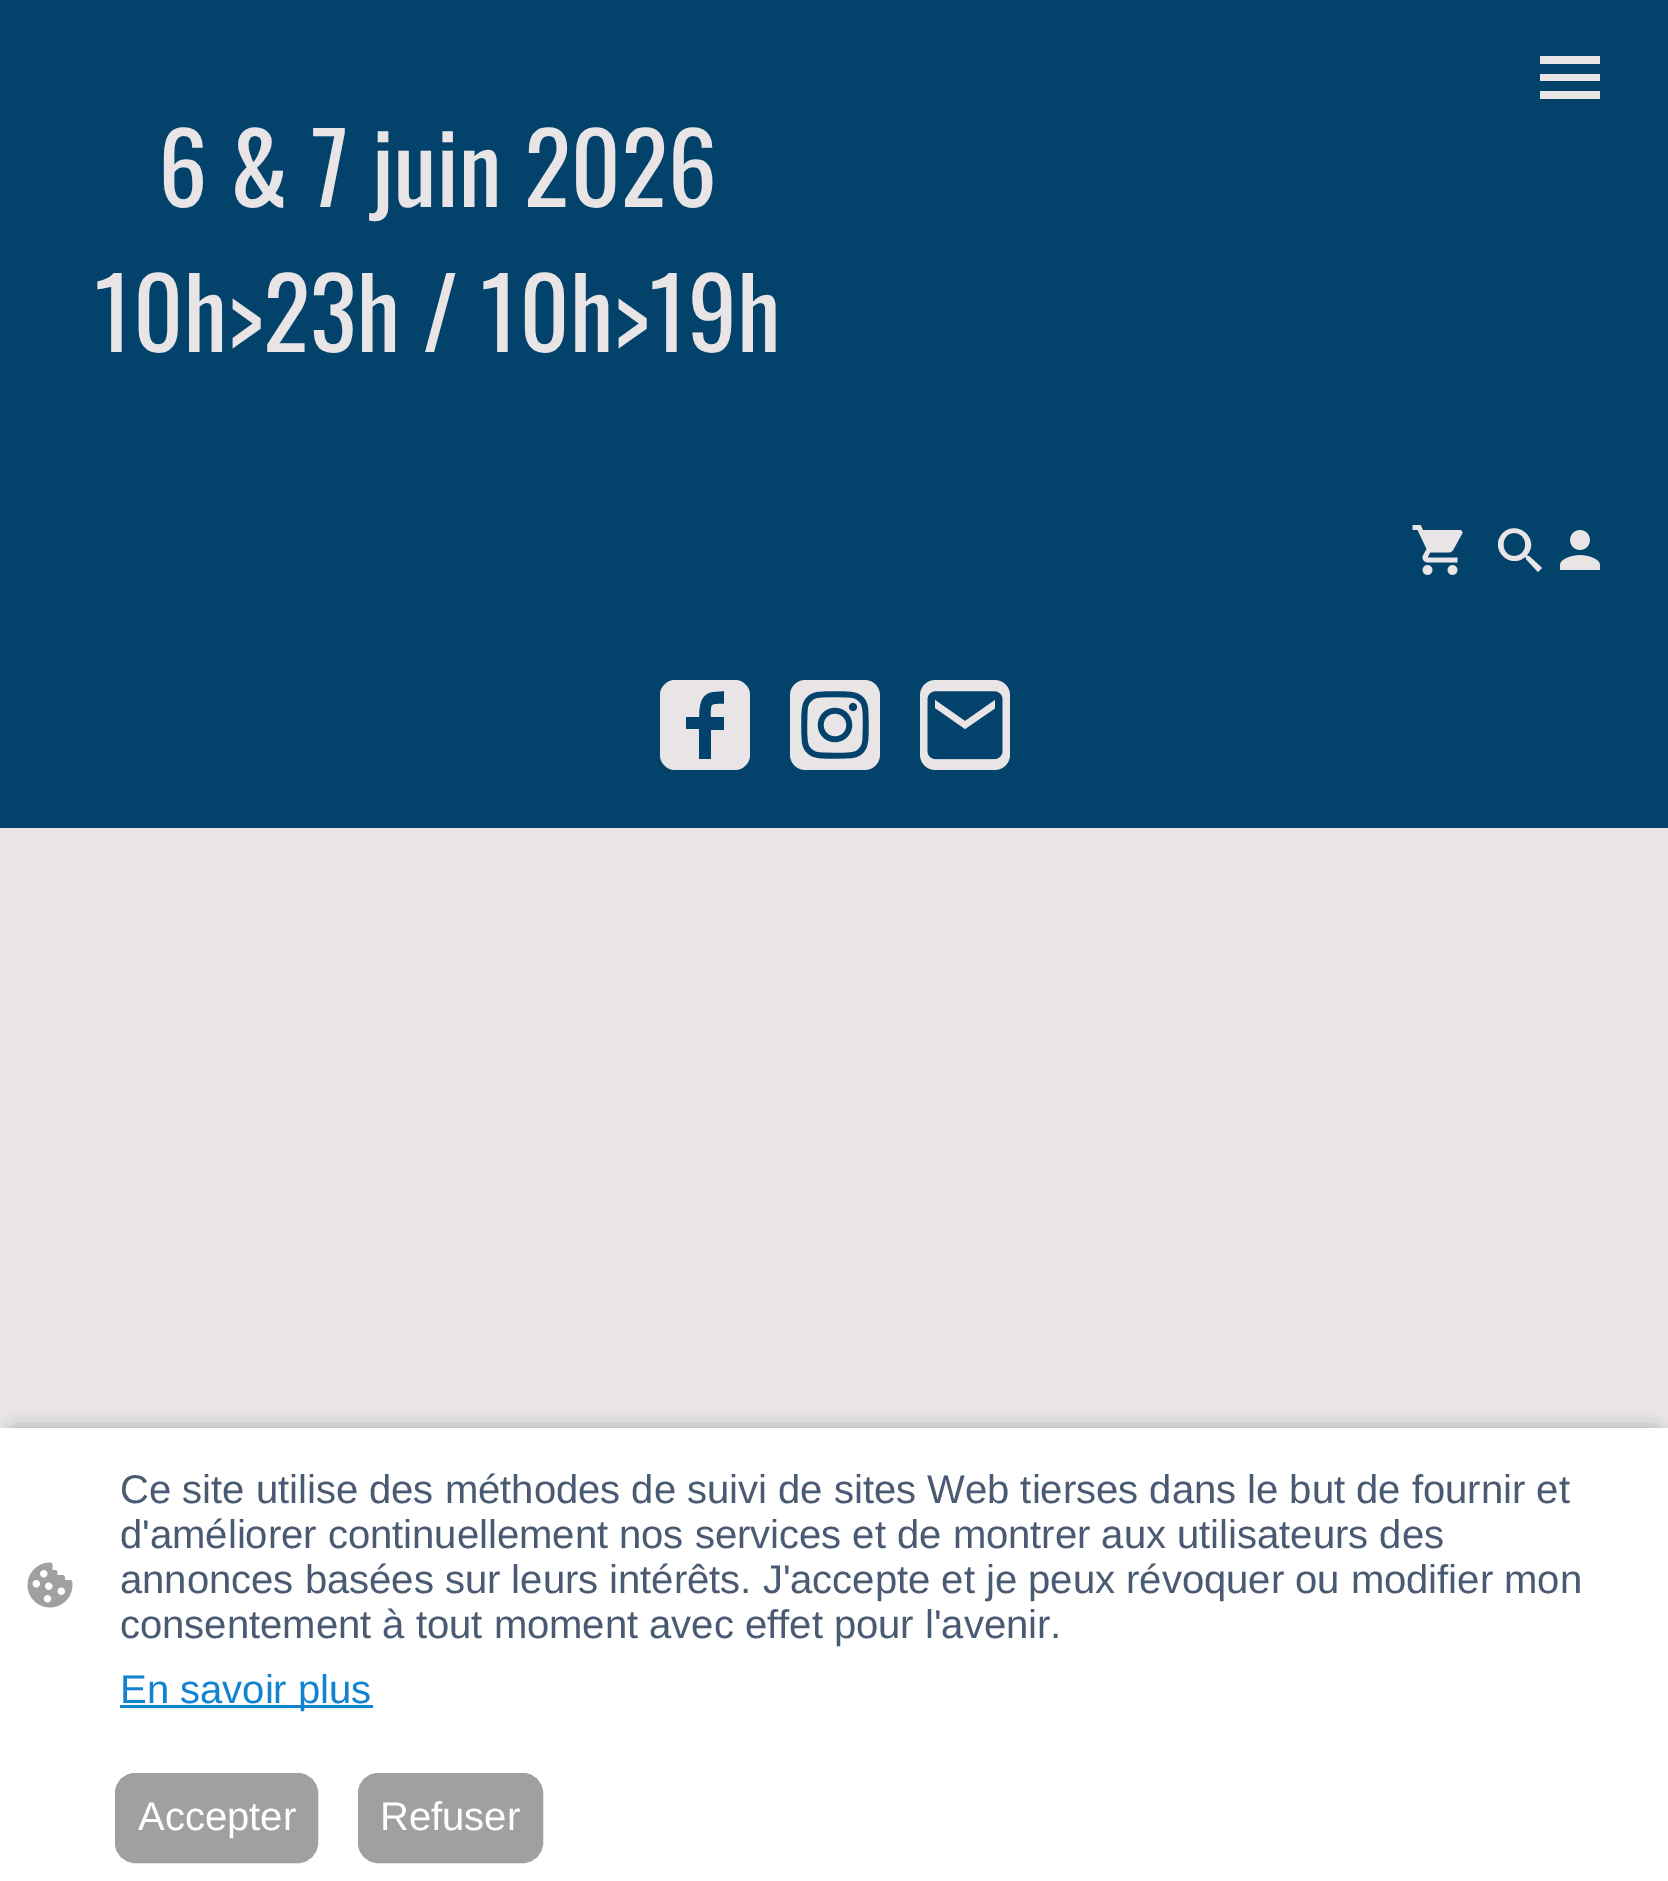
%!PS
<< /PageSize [1668 1881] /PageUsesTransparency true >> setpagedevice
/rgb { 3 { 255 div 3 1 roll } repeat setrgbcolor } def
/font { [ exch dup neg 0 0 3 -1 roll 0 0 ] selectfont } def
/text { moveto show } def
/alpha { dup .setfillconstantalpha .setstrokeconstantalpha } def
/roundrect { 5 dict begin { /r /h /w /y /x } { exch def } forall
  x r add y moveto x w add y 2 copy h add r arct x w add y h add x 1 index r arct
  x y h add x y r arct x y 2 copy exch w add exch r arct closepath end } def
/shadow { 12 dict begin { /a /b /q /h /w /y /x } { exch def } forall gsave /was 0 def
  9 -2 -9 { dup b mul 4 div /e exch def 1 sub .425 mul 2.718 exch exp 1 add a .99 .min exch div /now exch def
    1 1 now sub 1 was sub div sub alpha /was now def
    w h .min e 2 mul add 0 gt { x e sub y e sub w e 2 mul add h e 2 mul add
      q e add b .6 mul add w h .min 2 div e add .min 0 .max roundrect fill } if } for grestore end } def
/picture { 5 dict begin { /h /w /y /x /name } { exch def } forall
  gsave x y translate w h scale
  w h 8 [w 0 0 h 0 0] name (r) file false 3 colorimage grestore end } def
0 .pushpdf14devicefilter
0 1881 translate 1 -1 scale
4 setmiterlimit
2 66 107 rgb
0 0 1668 1881 rectfill
233 229 230 rgb
1540 56 60 8 rectfill
1540 74 60 7 rectfill
1540 91 60 8 rectfill
(img_01.rgb) 97 127 679 226 picture
(img_02.rgb) 1412 525 51 50 picture
1529 556 moveto -1 0 rlineto -1 -1 rlineto 14 -16 -11 -37 -25 -21 rcurveto -13 15 8 36 23 23 rcurveto 1 1 rlineto 0 1 rlineto 12 13 rlineto 4 -4 rlineto closepath 1514 556 moveto -14 0 -14 -23 0 -23 rcurveto 15 0 15 23 0 23 rcurveto closepath fill
(img_03.rgb) 1560 530 40 40 picture
735 680 moveto -60 0 rlineto -8 0 -15 7 -15 15 rcurveto 0 60 rlineto 0 8 7 15 15 15 rcurveto 60 0 rlineto 8 0 15 -7 15 -15 rcurveto 0 -60 rlineto 0 -8 -7 -15 -15 -15 rcurveto closepath 724 704 moveto -14 0 -13 -1 -13 13 rcurveto 13 0 rlineto 0 13 rlineto -13 0 rlineto 0 29 rlineto -12 0 rlineto 0 -30 rlineto -13 0 rlineto 0 -12 rlineto 13 0 rlineto 0 -10 1 -23 13 -25 rcurveto 12 -1 rlineto closepath fill
(img_04.rgb) 790 680 90 90 picture
(img_05.rgb) 920 680 90 90 picture
0 828 1668 600 rectfill
0 0 0 rgb
15 1435 1640 425 0 10 0.63 shadow
255 255 255 rgb
0 1428 1668 453 rectfill
(img_06.rgb) 27 1562 46 46 picture
17 131 209 rgb
120 1705 253 3 rectfill
160 160 160 rgb
116.5 1774.5 200 87 18.5 roundrect gsave fill grestore
3 setlinewidth
stroke
359.5 1774.5 182 87 18.5 roundrect gsave fill grestore
stroke
/LiberationSans-Regular 40 font
74 90 115 rgb
(Ce site utilise des méthodes de suivi de sites Web tierses dans le but de fournir et) 120 1503 text
(d'améliorer continuellement nos services et de montrer aux utilisateurs des) 120 1548 text
(annonces basées sur leurs intérêts. J'accepte et je peux révoquer ou modifier mon) 120 1593 text
(consentement à tout moment avec effet pour l'avenir.) 120 1638 text
17 131 209 rgb
(En savoir plus) 120 1703 text
255 255 255 rgb
(Accepter) 138 1830 text
(Refuser) 380 1830 text
.poppdf14devicefilter showpage
